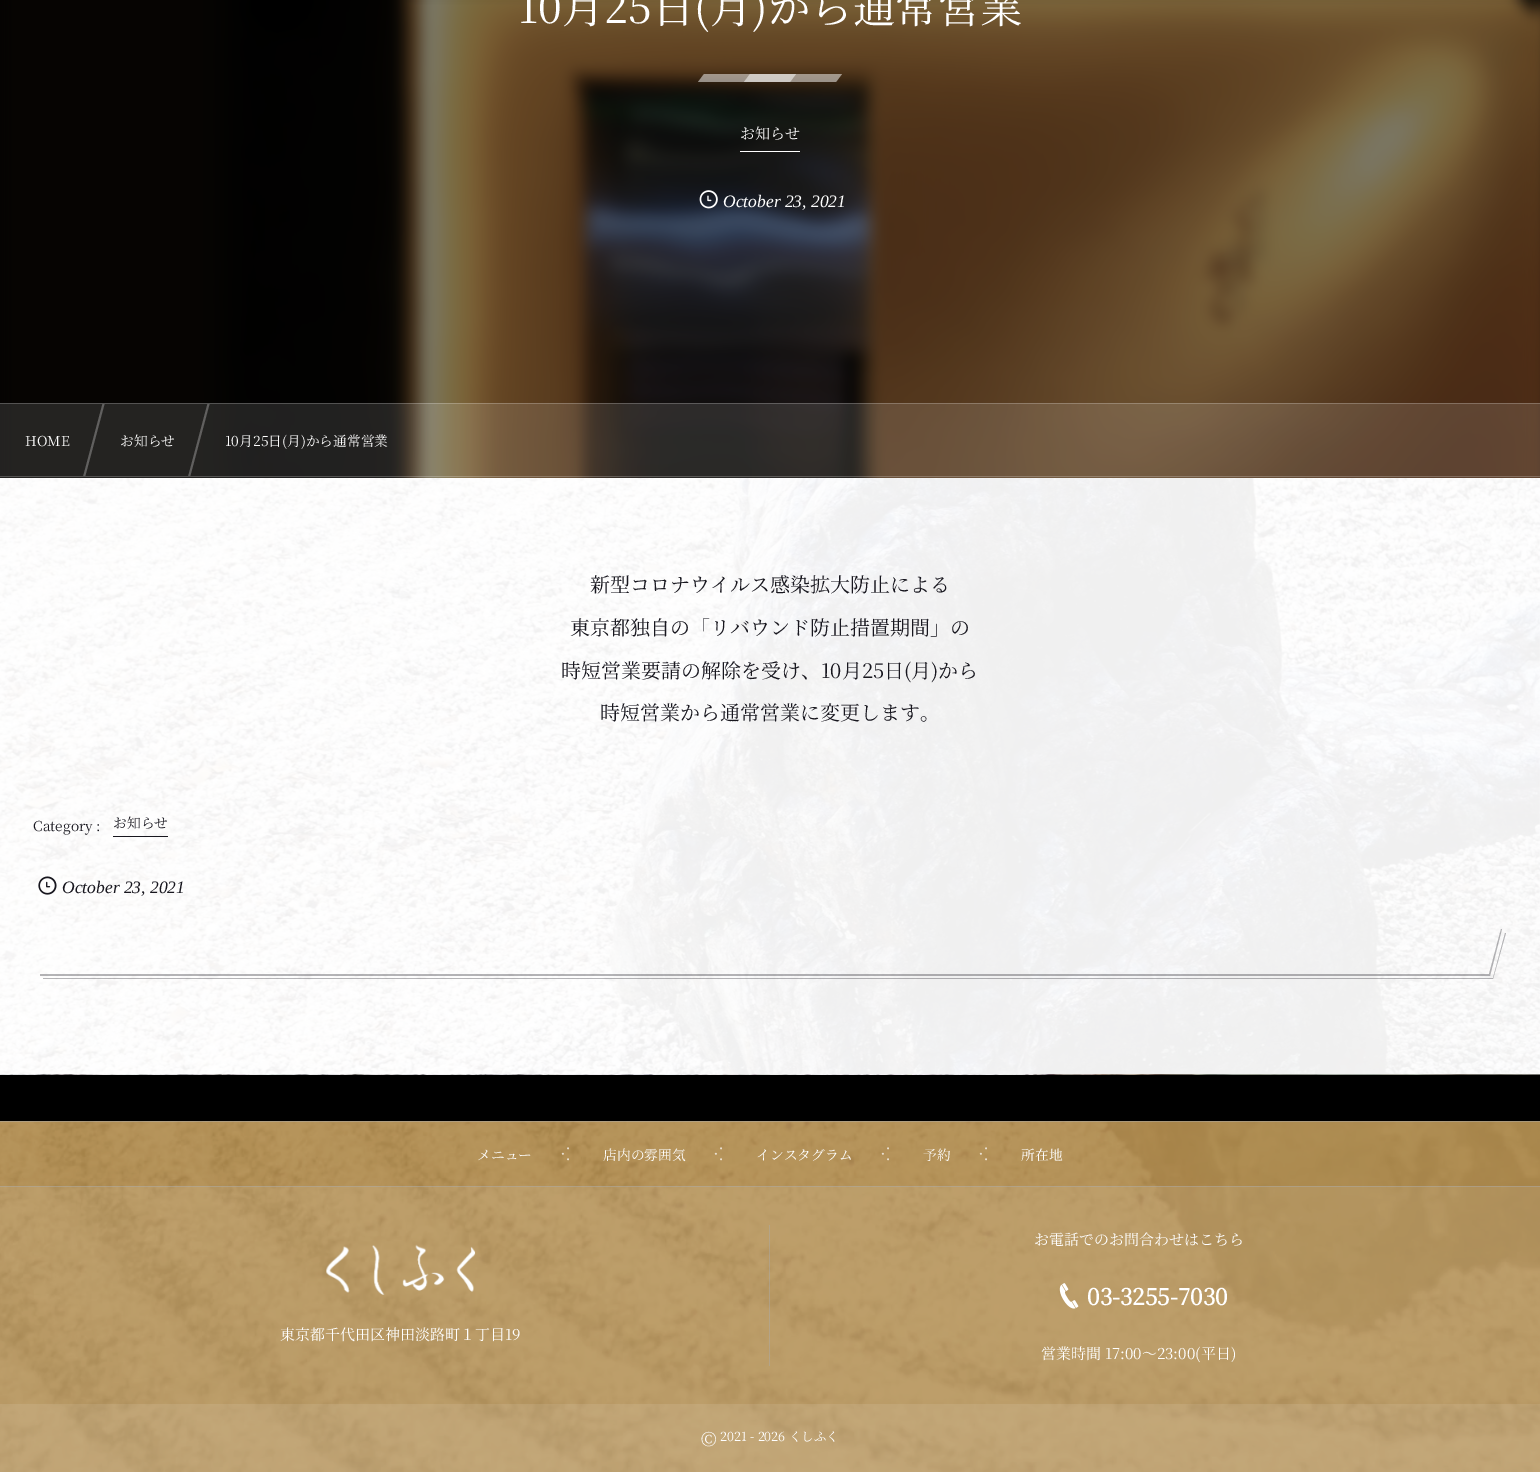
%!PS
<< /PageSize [1540 1472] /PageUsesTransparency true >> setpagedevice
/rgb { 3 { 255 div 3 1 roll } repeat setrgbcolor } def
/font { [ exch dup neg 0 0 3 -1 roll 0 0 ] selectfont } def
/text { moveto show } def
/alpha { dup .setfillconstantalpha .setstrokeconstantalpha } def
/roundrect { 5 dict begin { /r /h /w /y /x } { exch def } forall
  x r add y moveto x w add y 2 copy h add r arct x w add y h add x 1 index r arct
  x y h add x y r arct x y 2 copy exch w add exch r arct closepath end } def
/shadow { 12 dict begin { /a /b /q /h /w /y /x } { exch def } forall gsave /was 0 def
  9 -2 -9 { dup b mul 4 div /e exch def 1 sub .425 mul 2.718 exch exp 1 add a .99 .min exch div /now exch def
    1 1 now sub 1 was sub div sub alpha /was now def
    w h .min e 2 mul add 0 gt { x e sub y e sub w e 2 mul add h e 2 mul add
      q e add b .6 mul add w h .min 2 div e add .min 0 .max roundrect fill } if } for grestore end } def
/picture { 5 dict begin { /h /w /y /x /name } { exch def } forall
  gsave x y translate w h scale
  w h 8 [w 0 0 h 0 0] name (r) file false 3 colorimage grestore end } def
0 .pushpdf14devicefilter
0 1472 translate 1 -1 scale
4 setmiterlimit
255 255 255 rgb
0 0 1540 1472 rectfill
(img_01.rgb) 0 0 1540 1074 picture
(img_02.rgb) 0 0 1540 478 picture
0.52 alpha
0 0 0 rgb
0 0 1540 478 rectfill
1 alpha
0 -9 1540 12 0 3 0.06 shadow
0.5 alpha
255 255 255 rgb
704 74 moveto 92 0 rlineto -6 8 rlineto -92 0 rlineto closepath fill
750 74 moveto 92 0 rlineto -6 8 rlineto -92 0 rlineto closepath fill
1 alpha
740 151 60 1 rectfill
(img_03.rgb) 699 190 19 19 picture
0.12 alpha
0 403 1540 75 rectfill
0.22 alpha
0 403 1540 1 rectfill
0 476 1540 1 rectfill
gsave
0 404 1540 72 rectclip
1 alpha
97 96 95 rgb
103 402 moveto 2 0 rlineto -20 75 rlineto -2 0 rlineto closepath fill
208 402 moveto 2 0 rlineto -20 75 rlineto -2 0 rlineto closepath fill
grestore
1 alpha
24 23 31 rgb
113 836 55 1 rectfill
(img_04.rgb) 38 876 19 19 picture
0.32 alpha
40 974 moveto 0 2 rlineto 1450 0 rlineto 12 -47 rlineto -1 0 rlineto -12 45 rlineto closepath fill
43 978 moveto 0 1 rlineto 1450 0 rlineto 13 -46 rlineto -1 0 rlineto -12 45 rlineto closepath fill
1 alpha
(img_05.rgb) 0 1074 1540 398 picture
0 0 0 rgb
0 1075 1540 46 rectfill
0.08 alpha
255 255 255 rgb
0 1121 1540 65 rectfill
0.48 alpha
170 170 170 rgb
0 1121 1540 1 rectfill
0.16 alpha
255 255 255 rgb
0 1186 1540 218 rectfill
0.48 alpha
170 170 170 rgb
0 1186 1540 1 rectfill
769 1225 1 141 rectfill
1 alpha
(img_06.rgb) 326 1244 150 51 picture
(img_07.rgb) 1059 1283 20 26 picture
0.24 alpha
255 255 255 rgb
0 1404 1540 68 rectfill
/NotoSerifJP-ExtraLight 42.5 font
1 alpha
(10月25日\(月\)から通常営業) 518 23 text
/NotoSerifJP-ExtraLight 15 font
(お知らせ) 740 139 text
/LiberationSerif-Italic 17.5 font
(October 23, 2021) 723 207 text
/NotoSerifJP-ExtraLight 13.75 font
(HOME) 25 446 text
(お知らせ) 120 446 text
(10月25日\(月\)から通常営業) 225 446 text
/NotoSerifJP-ExtraLight 20 font
24 23 31 rgb
(新型コロナウイルス感染拡大防止による) 590 592 text
(東京都独自の「リバウンド防止措置期間」の) 570 635 text
(時短営業要請の解除を受け、10月25日\(月\)から) 561 678 text
(時短営業から通常営業に変更します。) 600 720 text
/NotoSerifJP-ExtraLight 13.75 font
(Category :) 33 831 text
(お知らせ) 113 828 text
/LiberationSerif-Italic 17.5 font
(October 23, 2021) 62 893 text
/NotoSerifJP-ExtraLight 13.75 font
255 255 255 rgb
(メニュー) 477 1160 text
/NotoSans-Regular 17.5 font
233 223 207 rgb
(⁖) 561 1160 text
/NotoSerifJP-ExtraLight 13.75 font
255 255 255 rgb
(店内の雰囲気) 603 1160 text
/NotoSans-Regular 17.5 font
233 223 207 rgb
(⁖) 714 1160 text
/NotoSerifJP-ExtraLight 13.75 font
255 255 255 rgb
(インスタグラム) 756 1160 text
/NotoSans-Regular 17.5 font
233 223 207 rgb
(⁖) 881 1160 text
/NotoSerifJP-ExtraLight 13.75 font
255 255 255 rgb
(予約) 923 1160 text
/NotoSans-Regular 17.5 font
233 223 207 rgb
(⁖) 979 1160 text
/NotoSerifJP-ExtraLight 13.75 font
255 255 255 rgb
(所在地) 1021 1160 text
/NotoSerifJP-ExtraLight 15 font
(東京都千代田区神田淡路町１丁目19) 280 1340 text
(お電話でのお問合わせはこちら) 1034 1245 text
/NotoSerifJP-Bold 22.5 font
(03-3255-7030) 1087 1305 text
/NotoSerifJP-ExtraLight 15 font
(営業時間 17:00〜23:00\(平日\)) 1041 1359 text
/NotoSerifJP-ExtraLight 19 font
(©) 701 1446 text
/NotoSerifJP-ExtraLight 12.5 font
(2021 - 2026 くしふく) 720 1441 text
.poppdf14devicefilter showpage
